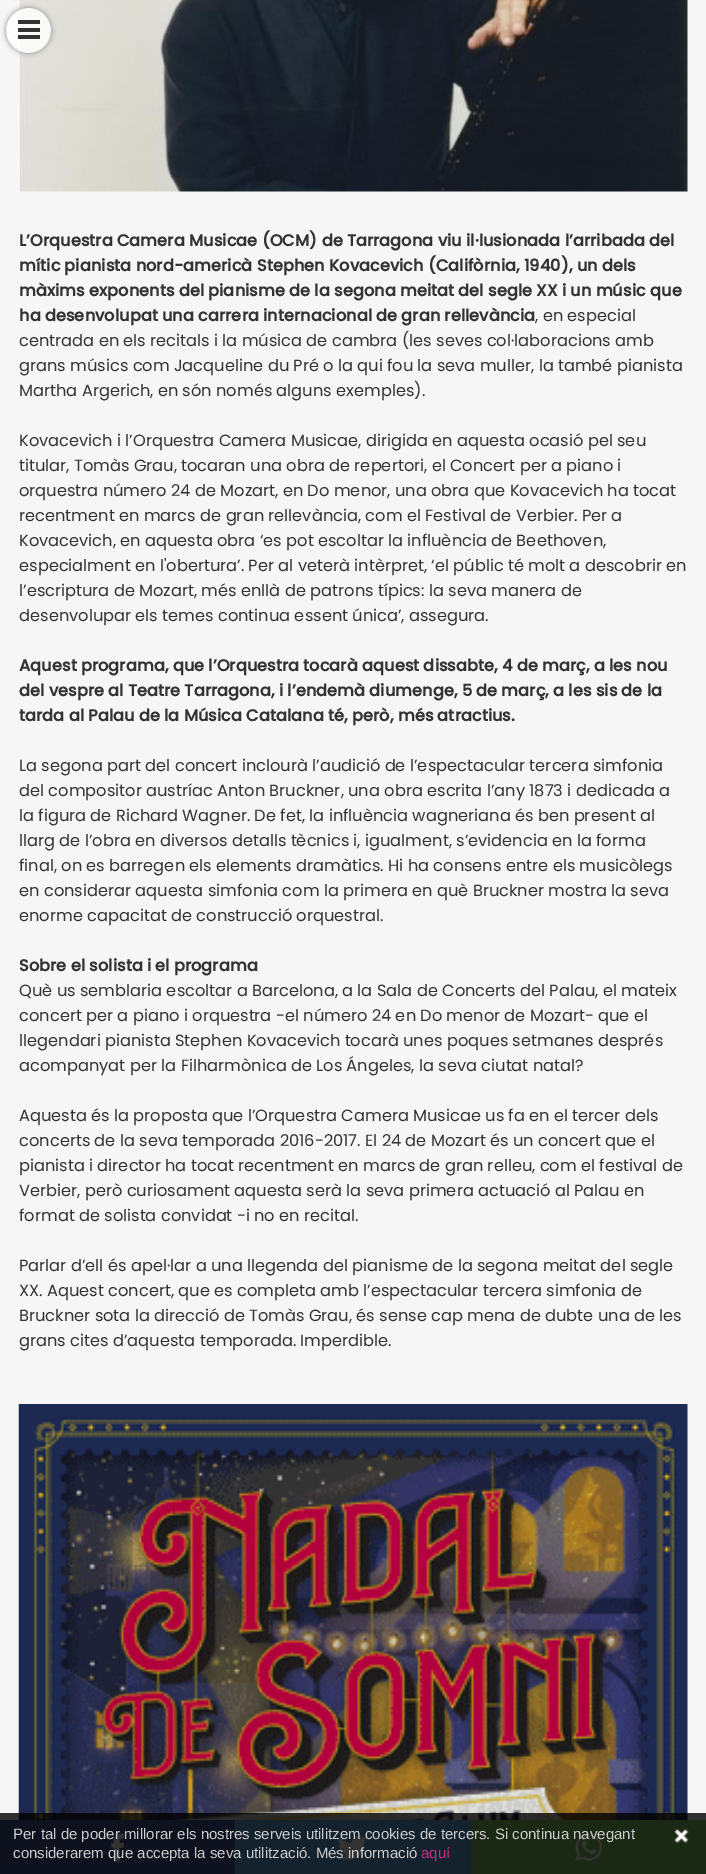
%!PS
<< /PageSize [706 1874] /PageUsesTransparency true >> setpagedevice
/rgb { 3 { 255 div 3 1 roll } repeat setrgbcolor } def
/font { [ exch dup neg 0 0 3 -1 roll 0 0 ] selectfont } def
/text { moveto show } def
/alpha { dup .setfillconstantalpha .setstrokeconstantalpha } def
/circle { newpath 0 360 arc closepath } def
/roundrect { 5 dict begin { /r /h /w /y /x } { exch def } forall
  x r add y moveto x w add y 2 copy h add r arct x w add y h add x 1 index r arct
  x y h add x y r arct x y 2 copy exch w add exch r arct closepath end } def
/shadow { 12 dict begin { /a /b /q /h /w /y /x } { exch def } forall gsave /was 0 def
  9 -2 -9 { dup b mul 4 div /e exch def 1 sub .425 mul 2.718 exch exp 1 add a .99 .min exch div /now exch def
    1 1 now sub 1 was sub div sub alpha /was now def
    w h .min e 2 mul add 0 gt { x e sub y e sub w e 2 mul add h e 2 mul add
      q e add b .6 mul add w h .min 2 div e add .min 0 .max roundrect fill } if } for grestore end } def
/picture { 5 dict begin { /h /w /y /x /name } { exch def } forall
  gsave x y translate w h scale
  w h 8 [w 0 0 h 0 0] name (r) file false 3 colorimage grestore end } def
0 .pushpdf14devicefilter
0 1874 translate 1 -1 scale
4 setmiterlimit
246 246 246 rgb
0 0 706 1874 rectfill
(img_01.rgb) 19 0 669 192 picture
gsave
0 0 moveto 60 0 rlineto 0 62 rlineto -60 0 rlineto closepath 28.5 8 moveto 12.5 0 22.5 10 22.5 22.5 rcurveto 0 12.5 -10 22.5 -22.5 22.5 rcurveto -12.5 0 -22.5 -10 -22.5 -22.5 rcurveto 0 -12.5 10 -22.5 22.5 -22.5 rcurveto closepath eoclip newpath
136 136 136 rgb
6 8 45 45 22.5 2.5 1 shadow
grestore
0.8 alpha
255 255 255 rgb
28.5 30.5 22.5 circle fill
1 alpha
51 51 51 rgb
18 20 22 4 rectfill
18 28 22 4 rectfill
18 35 22 4 rectfill
(img_02.rgb) 18 1404 670 416 picture
69 90 151 rgb
0 1820 235 54 rectfill
(img_03.rgb) 111 1833 13 29 picture
99 168 224 rgb
235 1820 236 54 rectfill
(img_04.rgb) 337 1835 31 25 picture
135 202 99 rgb
471 1820 235 54 rectfill
(img_05.rgb) 574 1834 28 28 picture
0.8 alpha
0 0 0 rgb
0 1813 706 61 rectfill
1 alpha
(img_06.rgb) 674 1828 15 15 picture
/Poppins-Bold 16.25 font
51 51 51 rgb
(L’Orquestra Camera Musicae \(OCM\) de Tarragona viu il·lusionada l’arribada del) 19 246 text
(mític pianista nord-americà Stephen Kovacevich \(Califòrnia, 1940\), un dels) 19 271 text
(màxims exponents del pianisme de la segona meitat del segle XX i un músic que) 19 296 text
(ha desenvolupat una carrera internacional de gran rellevància) 19 321 text
/Poppins-Regular 16.25 font
(, en especial) 535 321 text
(centrada en els recitals i la música de cambra \(les seves col·laboracions amb) 19 346 text
(grans músics com Jacqueline du Pré o la qui fou la seva muller, la també pianista) 19 371 text
(Martha Argerich, en són només alguns exemples\).) 19 396 text
(Kovacevich i l’Orquestra Camera Musicae, dirigida en aquesta ocasió pel seu) 19 446 text
(titular, Tomàs Grau, tocaran una obra de repertori, el Concert per a piano i) 19 471 text
(orquestra número 24 de Mozart, en Do menor, una obra que Kovacevich ha tocat) 19 496 text
(recentment en marcs de gran rellevància, com el Festival de Verbier. Per a) 19 521 text
(Kovacevich, en aquesta obra ‘es pot escoltar la influència de Beethoven,) 19 546 text
(especialment en l'obertura’. Per al veterà intèrpret, ‘el públic té molt a descobrir en) 19 571 text
(l’escriptura de Mozart, més enllà de patrons típics: la seva manera de) 19 596 text
(desenvolupar els temes continua essent única’, assegura.) 19 621 text
/Poppins-Bold 16.25 font
(Aquest programa, que l’Orquestra tocarà aquest dissabte, 4 de març, a les nou) 19 671 text
(del vespre al Teatre Tarragona, i l’endemà diumenge, 5 de març, a les sis de la) 19 696 text
(tarda al Palau de la Música Catalana té, però, més atractius.) 19 721 text
/Poppins-Regular 16.25 font
(La segona part del concert inclourà l’audició de l’espectacular tercera simfonia) 19 771 text
(del compositor austríac Anton Bruckner, una obra escrita l’any 1873 i dedicada a) 19 796 text
(la figura de Richard Wagner. De fet, la influència wagneriana és ben present al) 19 821 text
(llarg de l’obra en diversos detalls tècnics i, igualment, s’evidencia en la forma) 19 846 text
(final, on es barregen els elements dramàtics. Hi ha consens entre els musicòlegs) 19 871 text
(en considerar aquesta simfonia com la primera en què Bruckner mostra la seva) 19 896 text
(enorme capacitat de construcció orquestral.) 19 921 text
/Poppins-Bold 16.25 font
(Sobre el solista i el programa) 19 971 text
/Poppins-Regular 16.25 font
(Què us semblaria escoltar a Barcelona, a la Sala de Concerts del Palau, el mateix) 19 996 text
(concert per a piano i orquestra -el número 24 en Do menor de Mozart- que el) 19 1021 text
(llegendari pianista Stephen Kovacevich tocarà unes poques setmanes després) 19 1046 text
(acompanyat per la Filharmònica de Los Ángeles, la seva ciutat natal?) 19 1071 text
(Aquesta és la proposta que l’Orquestra Camera Musicae us fa en el tercer dels) 19 1121 text
(concerts de la seva temporada 2016-2017. El 24 de Mozart és un concert que el) 19 1146 text
(pianista i director ha tocat recentment en marcs de gran relleu, com el festival de) 19 1171 text
(Verbier, però curiosament aquesta serà la seva primera actuació al Palau en) 19 1196 text
(format de solista convidat -i no en recital.) 19 1221 text
(Parlar d’ell és apel·lar a una llegenda del pianisme de la segona meitat del segle) 19 1271 text
(XX. Aquest concert, que es completa amb l’espectacular tercera simfonia de) 19 1296 text
(Bruckner sota la direcció de Tomàs Grau, és sense cap mena de dubte una de les) 19 1321 text
(grans cites d’aquesta temporada. Imperdible.) 19 1346 text
/LiberationSans-Regular 15 font
204 204 204 rgb
(Per tal de poder millorar els nostres serveis utilitzem cookies de tercers. Si continua navegant) 13 1839 text
(considerarem que accepta la seva utilització. Més informació) 13 1858 text
198 47 136 rgb
(aquí) 421 1858 text
.poppdf14devicefilter showpage
